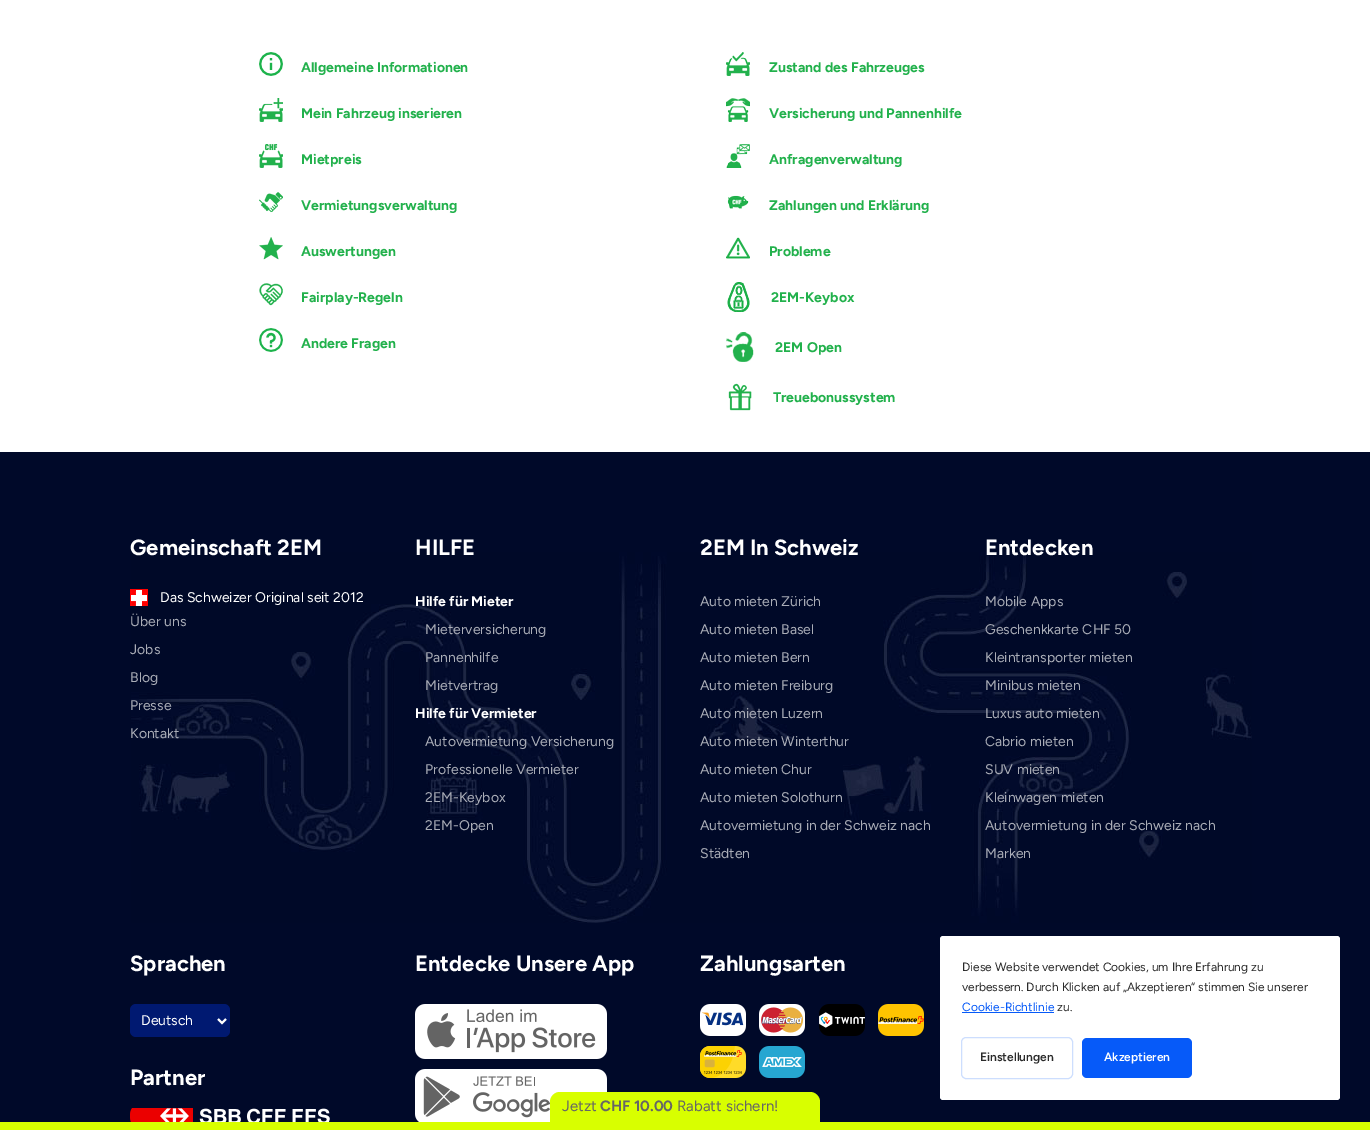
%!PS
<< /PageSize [1370 1130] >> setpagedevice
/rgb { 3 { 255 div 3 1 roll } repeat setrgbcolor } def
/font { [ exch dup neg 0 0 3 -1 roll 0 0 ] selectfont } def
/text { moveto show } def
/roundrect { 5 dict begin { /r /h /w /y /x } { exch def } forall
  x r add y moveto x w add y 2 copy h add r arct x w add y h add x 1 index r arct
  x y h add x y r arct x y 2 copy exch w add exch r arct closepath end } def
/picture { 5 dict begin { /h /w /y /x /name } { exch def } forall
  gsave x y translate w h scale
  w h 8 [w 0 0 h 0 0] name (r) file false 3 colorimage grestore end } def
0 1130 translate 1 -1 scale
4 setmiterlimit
0 9 41 rgb
0 0 1370 1130 rectfill
255 255 255 rgb
0 0 1370 452 rectfill
(img_01.rgb) 259 52 24 24 picture
(img_02.rgb) 259 98 24 24 picture
(img_03.rgb) 259 144 24 24 picture
(img_04.rgb) 259 192 24 21 picture
(img_05.rgb) 259 237 24 23 picture
(img_06.rgb) 259 283 24 23 picture
(img_07.rgb) 259 328 24 24 picture
(img_08.rgb) 726 52 24 24 picture
(img_09.rgb) 726 98 24 24 picture
(img_10.rgb) 726 144 24 24 picture
(img_11.rgb) 727 195 22 14 picture
(img_12.rgb) 726 237 24 22 picture
(img_13.rgb) 727 282 23 30 picture
(img_14.rgb) 726 332 28 30 picture
(img_15.rgb) 728 383 24 28 picture
(img_16.rgb) 131 552 1121 371 picture
(img_17.rgb) 130 589 18 17 picture
0 25 113 rgb
130 1004 100 33 6 roundrect fill
255 255 255 rgb
2 setlinewidth
218 1019 moveto 4 4 rlineto 4 -4 rlineto stroke
(img_18.rgb) 130 1108 200 14 picture
(img_19.rgb) 415 1004 192 55 picture
(img_20.rgb) 415 1069 192 53 picture
(img_21.rgb) 700 1004 46 32 picture
(img_22.rgb) 759 1004 46 32 picture
(img_23.rgb) 819 1004 46 32 picture
(img_24.rgb) 878 1004 46 32 picture
(img_25.rgb) 700 1046 46 32 picture
(img_26.rgb) 759 1046 46 32 picture
940 936 400 164 3 roundrect fill
6 90 249 rgb
962 1012 92 1 rectfill
205 222 254 rgb
1 setlinewidth
961.5 1037.5 111 41 4.5 roundrect stroke
6 90 249 rgb
1082 1038 110 40 5 roundrect fill
216 255 0 rgb
0 1122 1370 8 rectfill
560 1092 moveto 250 0 rlineto 5.5 0 10 4.5 10 10 rcurveto 0 20 rlineto -270 0 rlineto 0 -20 rlineto 0 -5.5 4.5 -10 10 -10 rcurveto closepath fill
/Figtree-Bold 14 font
34 177 76 rgb
(Allgemeine Informationen) 301 72 text
(Mein Fahrzeug inserieren) 301 118 text
(Mietpreis) 301 164 text
(Vermietungsverwaltung) 301 210 text
(Auswertungen) 301 256 text
(Fairplay-Regeln) 301 302 text
(Andere Fragen) 301 348 text
(Zustand des Fahrzeuges) 769 72 text
(Versicherung und Pannenhilfe) 769 118 text
(Anfragenverwaltung) 769 164 text
(Zahlungen und Erklärung) 769 210 text
(Probleme) 769 256 text
(2EM-Keybox) 771 302 text
(2EM Open) 775 352 text
(Treuebonussystem) 773 402 text
/Figtree-Bold 22 font
255 255 255 rgb
(Gemeinschaft 2EM) 130 555 text
/Figtree-Regular 14 font
(Das Schweizer Original seit 2012) 160 602 text
170 173 183 rgb
(Über uns) 130 626 text
(Jobs) 130 654 text
(Blog) 130 682 text
(Presse) 130 710 text
(Kontakt) 130 738 text
/Figtree-Bold 22 font
255 255 255 rgb
(HILFE) 415 555 text
/Figtree-Bold 14 font
(Hilfe für Mieter) 415 606 text
/Figtree-Regular 14 font
170 173 183 rgb
(Mieterversicherung) 425 634 text
(Pannenhilfe) 425 662 text
(Mietvertrag) 425 690 text
/Figtree-Bold 14 font
255 255 255 rgb
(Hilfe für Vermieter) 415 718 text
/Figtree-Regular 14 font
170 173 183 rgb
(Autovermietung Versicherung) 425 746 text
(Professionelle Vermieter) 425 774 text
(2EM-Keybox) 425 802 text
(2EM-Open) 425 830 text
/Figtree-Bold 22 font
255 255 255 rgb
(2EM In Schweiz) 700 555 text
/Figtree-Regular 14 font
170 173 183 rgb
(Auto mieten Zürich) 700 606 text
(Auto mieten Basel) 700 634 text
(Auto mieten Bern) 700 662 text
(Auto mieten Freiburg) 700 690 text
(Auto mieten Luzern) 700 718 text
(Auto mieten Winterthur) 700 746 text
(Auto mieten Chur) 700 774 text
(Auto mieten Solothurn) 700 802 text
(Autovermietung in der Schweiz nach) 700 830 text
(Städten) 700 858 text
/Figtree-Bold 22 font
255 255 255 rgb
(Entdecken) 985 555 text
/Figtree-Regular 14 font
170 173 183 rgb
(Mobile Apps) 985 606 text
(Geschenkkarte CHF 50) 985 634 text
(Kleintransporter mieten) 985 662 text
(Minibus mieten) 985 690 text
(Luxus auto mieten) 985 718 text
(Cabrio mieten) 985 746 text
(SUV mieten) 985 774 text
(Kleinwagen mieten) 985 802 text
(Autovermietung in der Schweiz nach) 985 830 text
(Marken) 985 858 text
/Figtree-Bold 22 font
255 255 255 rgb
(Sprachen) 130 971 text
/Figtree-Regular 14 font
(Deutsch) 141 1025 text
/Figtree-Bold 22 font
(Partner) 130 1085 text
(Entdecke Unsere App) 415 971 text
(Zahlungsarten) 700 971 text
/Figtree-Regular 12 font
42 42 42 rgb
(Diese Website verwendet Cookies, um Ihre Erfahrung zu) 962 971 text
(verbessern. Durch Klicken auf „Akzeptieren“ stimmen Sie unserer) 962 991 text
6 90 249 rgb
(Cookie-Richtlinie) 962 1011 text
42 42 42 rgb
(zu.) 1057 1011 text
/Figtree-SemiBold 12 font
(Einstellungen) 980 1061 text
255 255 255 rgb
(Akzeptieren) 1104 1061 text
/Figtree-Regular 15 font
102 102 102 rgb
(Jetzt) 562 1111 text
/Figtree-Bold 15 font
(CHF 10.00) 600 1111 text
/Figtree-Regular 15 font
(Rabatt sichern!) 677 1111 text
showpage
